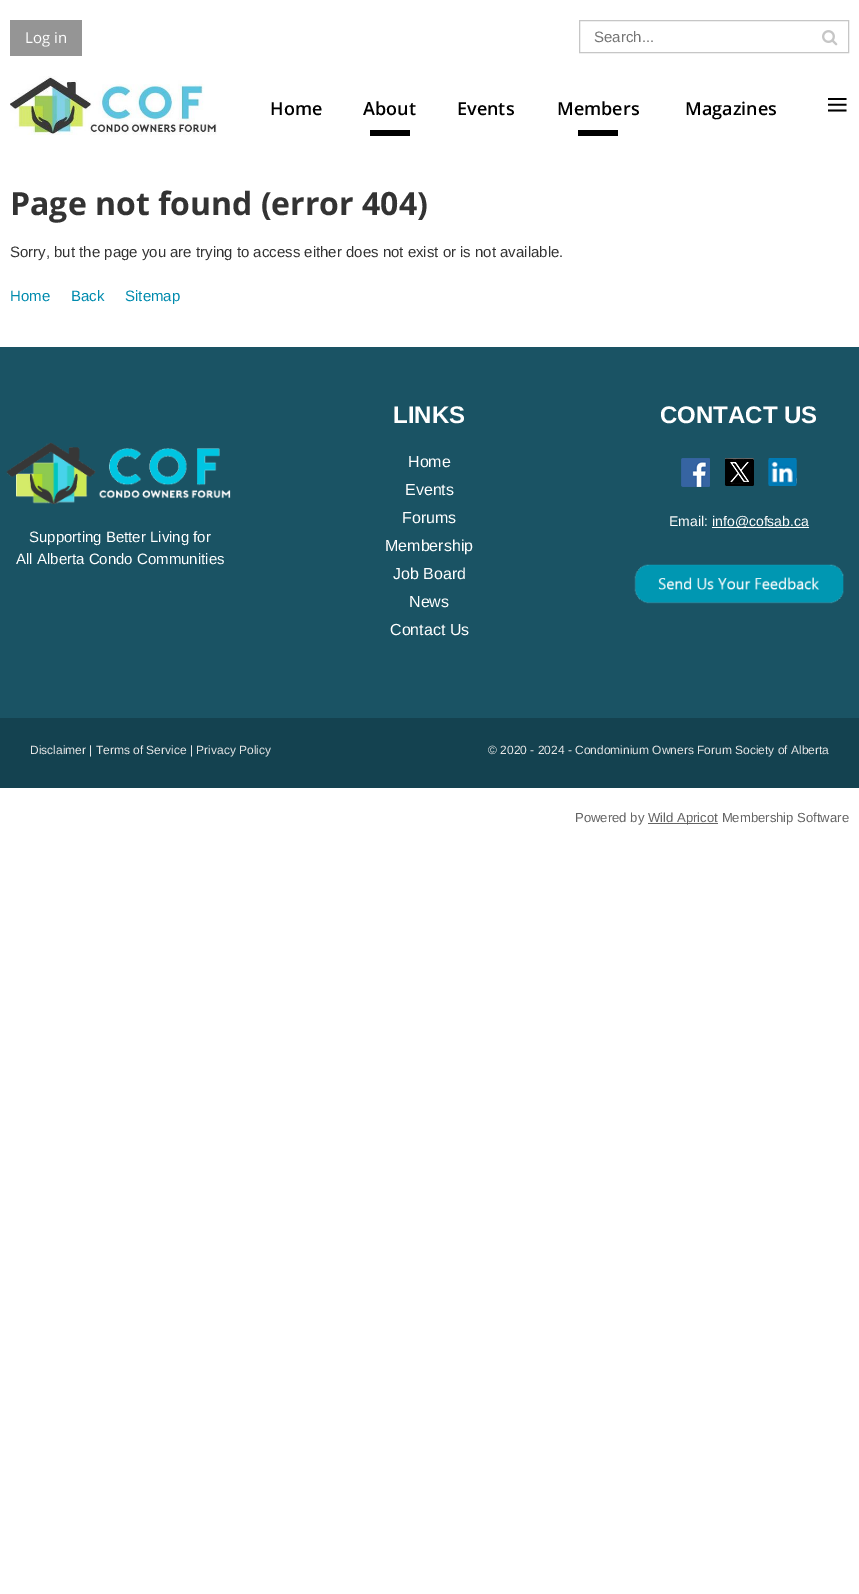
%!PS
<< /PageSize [859 1594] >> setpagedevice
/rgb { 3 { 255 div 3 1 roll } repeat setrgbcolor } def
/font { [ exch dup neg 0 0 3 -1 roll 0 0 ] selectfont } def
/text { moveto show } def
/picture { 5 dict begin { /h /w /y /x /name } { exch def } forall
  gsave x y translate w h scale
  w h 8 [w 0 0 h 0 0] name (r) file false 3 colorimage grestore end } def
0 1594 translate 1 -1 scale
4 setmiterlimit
255 255 255 rgb
0 0 859 1594 rectfill
149 149 149 rgb
10 20 72 36 rectfill
198 198 198 rgb
579.5 20.5 269 32 rectstroke
(img_01.rgb) 822 30 16 16 picture
(img_02.rgb) 10 76 207 59 picture
0 0 0 rgb
370 130 40 6 rectfill
578 130 40 6 rectfill
26 83 100 rgb
0 347 859 371 rectfill
(img_03.rgb) 681 458 29 29 picture
(img_04.rgb) 725 458 29 28 picture
(img_05.rgb) 768 458 29 28 picture
255 255 255 rgb
712 527 97 1 rectfill
(img_06.rgb) 634 564 210 40 picture
(img_07.rgb) 6 442 225 63 picture
20 66 80 rgb
0 718 859 70 rectfill
100 100 100 rgb
648 823 70 1 rectfill
/OpenSans-Regular 15 font
255 255 255 rgb
(Log in) 25 43 text
/LiberationSans-Regular 15 font
117 117 117 rgb
(Search...) 594 42 text
/OpenSans-SemiBold 18 font
0 0 0 rgb
(Home) 270 115 text
(About) 363 115 text
(Events) 457 115 text
(Members) 557 115 text
(Magazines) 685 115 text
/LiberationSerif-Regular 40 font
(≡) 826 118 text
/OpenSans-Bold 32 font
51 51 51 rgb
(Page not found \(error 404\)) 10 215 text
/LiberationSans-Regular 15 font
(Sorry, but the page you are trying to access either does not exist or is not available.) 10 257 text
0 139 174 rgb
(Home) 10 301 text
(Back) 71 301 text
(Sitemap) 125 301 text
/LiberationSans-Bold 24 font
255 255 255 rgb
(LINKS) 393 423 text
/LiberationSans-Regular 16 font
(Home) 408 467 text
(Events) 405 495 text
(Forums) 402 523 text
(Membership) 385 551 text
(Job Board) 393 579 text
(News) 409 607 text
(Contact Us) 390 635 text
/LiberationSans-Bold 24 font
(CONTACT US) 660 423 text
/LiberationSans-Regular 14 font
(Email:) 669 526 text
(info@cofsab.ca) 712 526 text
/LiberationSans-Regular 15 font
(Supporting Better Living for) 29 542 text
(All Alberta Condo Communities) 16 564 text
/LiberationSans-Regular 12 font
230 230 230 rgb
(Disclaimer | Terms of Service | Privacy Policy) 30 754 text
(© 2020 - 2024 - Condominium Owners Forum Society of Alberta) 488 754 text
/LiberationSans-Regular 13.1 font
100 100 100 rgb
(Powered by) 575 822 text
(Wild Apricot Membership Software) 648 822 text
showpage
